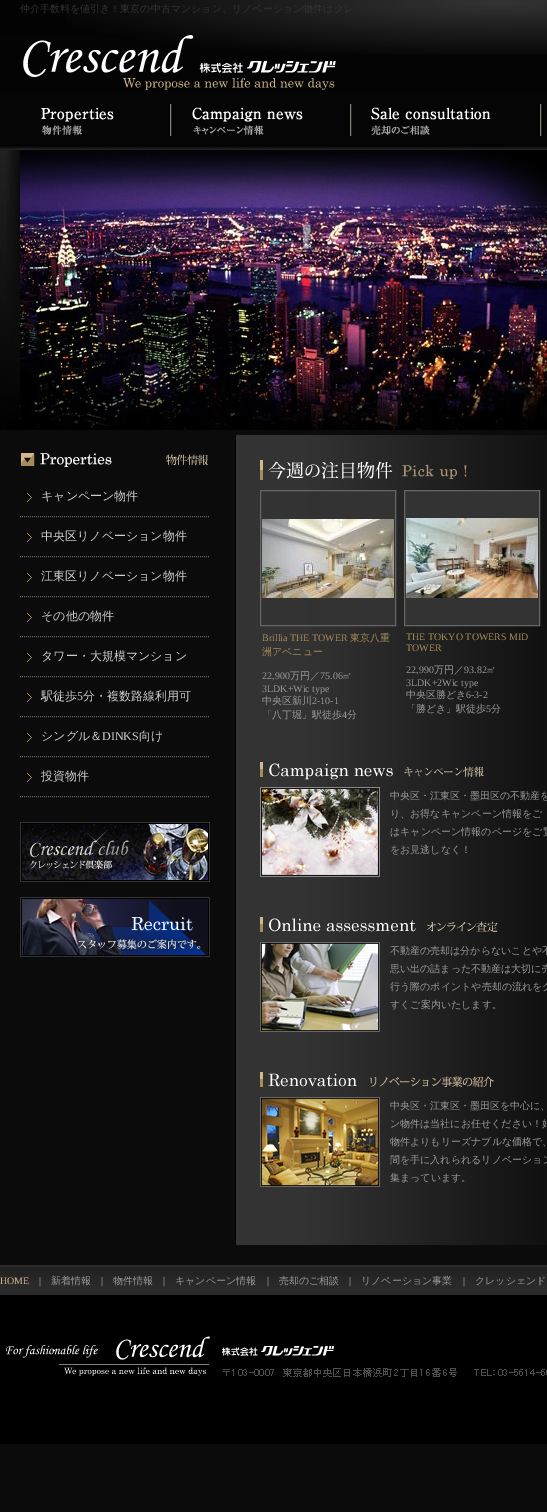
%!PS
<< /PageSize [547 1512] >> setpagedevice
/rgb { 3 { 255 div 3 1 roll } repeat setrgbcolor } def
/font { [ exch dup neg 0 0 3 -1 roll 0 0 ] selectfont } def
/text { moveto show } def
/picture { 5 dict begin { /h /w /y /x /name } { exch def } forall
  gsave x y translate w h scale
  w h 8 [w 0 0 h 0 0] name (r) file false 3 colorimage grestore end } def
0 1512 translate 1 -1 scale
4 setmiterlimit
11 11 11 rgb
0 0 547 1512 rectfill
(img_01.rgb) 0 0 547 150 picture
(img_02.rgb) 65 0 482 54 picture
(img_03.rgb) 23 35 313 55 picture
(img_04.rgb) 41 104 130 32 picture
(img_05.rgb) 171 104 180 32 picture
(img_06.rgb) 351 104 190 32 picture
37 33 21 rgb
541 104 1 32 rectfill
(img_07.rgb) 0 150 547 280 picture
(img_08.rgb) 235 435 312 810 picture
(img_09.rgb) 21 453 187 14 picture
(img_10.rgb) 27 493 5 9 picture
102 102 102 rgb
[1 1] 0 setdash
20 516.5 moveto 190 0 rlineto stroke
(img_10.rgb) 27 533 5 9 picture
20 556.5 moveto 190 0 rlineto stroke
(img_10.rgb) 27 573 5 9 picture
20 596.5 moveto 190 0 rlineto stroke
(img_10.rgb) 27 613 5 9 picture
20 636.5 moveto 190 0 rlineto stroke
(img_10.rgb) 27 653 5 9 picture
20 676.5 moveto 190 0 rlineto stroke
(img_10.rgb) 27 693 5 9 picture
20 716.5 moveto 190 0 rlineto stroke
(img_10.rgb) 27 733 5 9 picture
20 756.5 moveto 190 0 rlineto stroke
(img_10.rgb) 27 773 5 9 picture
20 796.5 moveto 190 0 rlineto stroke
(img_11.rgb) 20 822 190 60 picture
(img_12.rgb) 20 897 190 60 picture
(img_13.rgb) 260 460 207 20 picture
51 51 51 rgb
320 491 75 134 rectfill
102 102 102 rgb
[] 0 setdash
260.5 490.5 135 135 rectstroke
(img_14.rgb) 262 519 132 79 picture
51 51 51 rgb
404.5 490.5 moveto 135 0 rlineto 0 135 rlineto -135 0 rlineto closepath gsave fill grestore
102 102 102 rgb
stroke
(img_15.rgb) 406 518 132 80 picture
(img_16.rgb) 260 762 224 18 picture
(img_17.rgb) 260 787 120 90 picture
(img_18.rgb) 260 917 238 15 picture
(img_19.rgb) 260 942 120 90 picture
(img_20.rgb) 260 1072 234 16 picture
(img_21.rgb) 260 1097 120 90 picture
0 0 0 rgb
0 1295 547 149 rectfill
(img_22.rgb) 0 1265 547 30 picture
(img_23.rgb) 6 1336 541 41 picture
/WenQuanYiZenHei-Medium 10 font
51 51 51 rgb
(仲介手数料を値引き！東京の中古マンション、リノベーション物件はクレ) 20 12 text
/WenQuanYiZenHei-Medium 12 font
204 204 204 rgb
(キャンペーン物件) 41 500 text
(中央区リノベーション物件) 41 540 text
(江東区リノベーション物件) 41 580 text
(その他の物件) 41 620 text
(タワー・大規模マンション) 41 660 text
(駅徒歩) 41 700 text
/LiberationSerif-Regular 12 font
(5) 77 700 text
/WenQuanYiZenHei-Medium 12 font
(分・複数路線利用可) 83 700 text
(シングル＆) 41 740 text
/LiberationSerif-Regular 12 font
(DINKS) 102 740 text
/WenQuanYiZenHei-Medium 12 font
(向け) 139 740 text
(投資物件) 41 780 text
/LiberationSerif-Regular 10 font
165 140 87 rgb
(Brillia THE TOWER) 262 641 text
/WenQuanYiZenHei-Medium 10 font
(東京八重) 350 641 text
(洲アベニュー) 262 655 text
/LiberationSerif-Regular 10 font
153 153 153 rgb
(22,900) 262 679 text
/WenQuanYiZenHei-Medium 10 font
(万円／) 290 679 text
/LiberationSerif-Regular 10 font
(75.06) 320 679 text
/WenQuanYiZenHei-Medium 10 font
(㎡) 342 679 text
/LiberationSerif-Regular 10 font
(3LDK+Wic type) 262 692 text
/WenQuanYiZenHei-Medium 10 font
(中央区新川) 262 704 text
/LiberationSerif-Regular 10 font
(2-10-1) 312 704 text
/WenQuanYiZenHei-Medium 10 font
(「八丁堀」駅徒歩) 262 718 text
/LiberationSerif-Regular 10 font
(4) 342 718 text
/WenQuanYiZenHei-Medium 10 font
(分) 347 718 text
/LiberationSerif-Regular 10 font
165 140 87 rgb
(THE TOKYO TOWERS MID) 406 640 text
(TOWER) 406 651 text
153 153 153 rgb
(22,990) 406 673 text
/WenQuanYiZenHei-Medium 10 font
(万円／) 434 673 text
/LiberationSerif-Regular 10 font
(93.82) 464 673 text
/WenQuanYiZenHei-Medium 10 font
(㎡) 486 673 text
/LiberationSerif-Regular 10 font
(3LDK+2Wic type) 406 686 text
/WenQuanYiZenHei-Medium 10 font
(中央区勝どき) 406 698 text
/LiberationSerif-Regular 10 font
(6-3-2) 466 698 text
/WenQuanYiZenHei-Medium 10 font
(「勝どき」駅徒歩) 406 712 text
/LiberationSerif-Regular 10 font
(5) 486 712 text
/WenQuanYiZenHei-Medium 10 font
(分) 491 712 text
(中央区・江東区・墨田区の不動産を) 390 799 text
(り、お得なキャンペーン情報をご) 390 817 text
(はキャンペーン情報のページをご覧) 390 835 text
(をお見逃しなく！) 390 853 text
(不動産の売却は分からないことや不) 390 954 text
(思い出の詰まった不動産は大切に売) 390 972 text
(行う際のポイントや売却の流れをク) 390 990 text
(すくご案内いたします。) 390 1008 text
(中央区・江東区・墨田区を中心に、) 390 1109 text
(ン物件は当社にお任せください！好) 390 1127 text
(物件よりもリーズナブルな価格で、) 390 1145 text
(間を手に入れられるリノベーション) 390 1163 text
(集まっています。) 390 1181 text
/LiberationSerif-Regular 10 font
210 184 140 rgb
(HOME) 0 1284 text
(|) 39 1284 text
/WenQuanYiZenHei-Medium 10 font
153 153 153 rgb
(新着情報) 51 1284 text
/LiberationSerif-Regular 10 font
210 184 140 rgb
(|) 101 1284 text
/WenQuanYiZenHei-Medium 10 font
153 153 153 rgb
(物件情報) 113 1284 text
/LiberationSerif-Regular 10 font
210 184 140 rgb
(|) 163 1284 text
/WenQuanYiZenHei-Medium 10 font
153 153 153 rgb
(キャンペーン情報) 175 1284 text
/LiberationSerif-Regular 10 font
210 184 140 rgb
(|) 267 1284 text
/WenQuanYiZenHei-Medium 10 font
153 153 153 rgb
(売却のご相談) 279 1284 text
/LiberationSerif-Regular 10 font
210 184 140 rgb
(|) 349 1284 text
/WenQuanYiZenHei-Medium 10 font
153 153 153 rgb
(リノベーション事業) 361 1284 text
/LiberationSerif-Regular 10 font
210 184 140 rgb
(|) 463 1284 text
/WenQuanYiZenHei-Medium 10 font
153 153 153 rgb
(クレッシェンド) 475 1284 text
showpage
